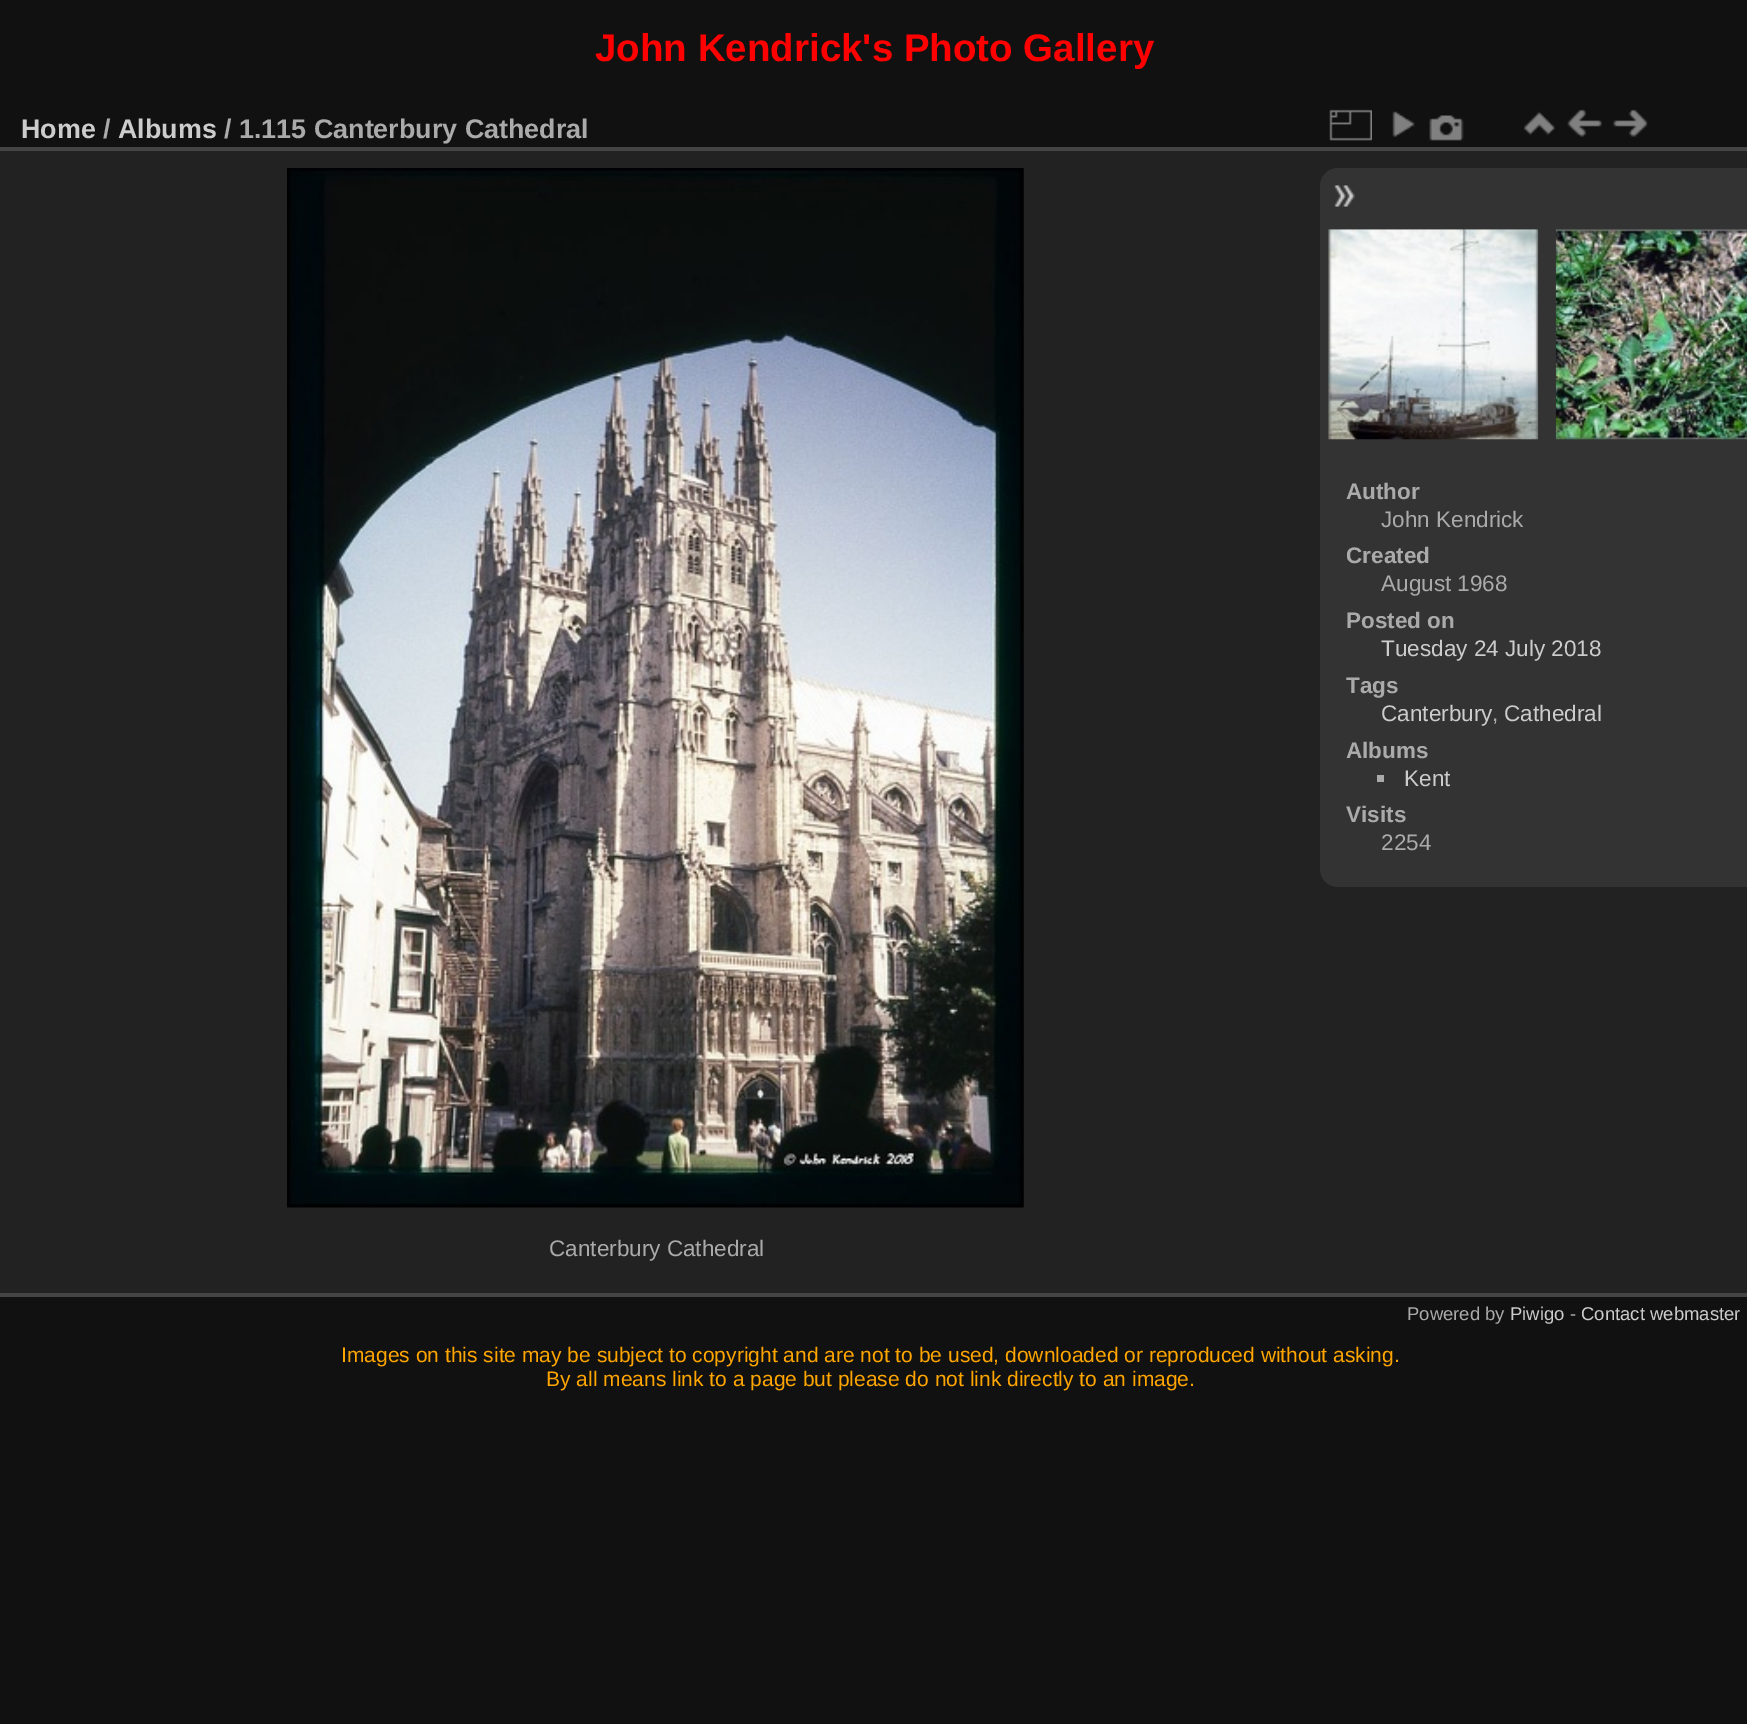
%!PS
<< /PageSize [1747 1724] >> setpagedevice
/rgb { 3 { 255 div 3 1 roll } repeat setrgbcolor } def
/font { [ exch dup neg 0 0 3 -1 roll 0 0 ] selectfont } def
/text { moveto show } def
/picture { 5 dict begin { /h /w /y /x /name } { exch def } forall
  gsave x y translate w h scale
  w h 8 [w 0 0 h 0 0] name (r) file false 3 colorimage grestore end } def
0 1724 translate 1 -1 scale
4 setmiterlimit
17 17 17 rgb
0 0 1747 1724 rectfill
34 34 34 rgb
0 151 1747 1142 rectfill
68 68 68 rgb
0 1293 1747 4 rectfill
0 147 1747 4 rectfill
(img_01.rgb) 1329 109 43 32 picture
(img_02.rgb) 1392 111 23 26 picture
(img_03.rgb) 1429 115 35 26 picture
(img_04.rgb) 1524 111 31 25 picture
(img_05.rgb) 1567 109 35 28 picture
(img_06.rgb) 1613 109 35 28 picture
51 51 51 rgb
1338 168 moveto 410 0 rlineto 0 719 rlineto -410 0 rlineto -10 0 -18 -8 -18 -18 rcurveto 0 -683 rlineto 0 -10 8 -18 18 -18 rcurveto closepath fill
(img_07.rgb) 1334 185 21 22 picture
(img_08.rgb) 1328 229 211 211 picture
(img_09.rgb) 1555 229 192 211 picture
170 170 170 rgb
1377 775 7 7 rectfill
(img_10.rgb) 287 168 737 1040 picture
/LiberationSans-Bold 38.5 font
255 0 0 rgb
(John Kendrick's Photo Gallery) 595 61 text
/LiberationSans-Bold 26.9 font
204 204 204 rgb
(Home) 21 138 text
170 170 170 rgb
(/) 103 138 text
204 204 204 rgb
(Albums) 118 138 text
170 170 170 rgb
(/ 1.115 Canterbury Cathedral) 224 138 text
/LiberationSans-Bold 22.5 font
(Author) 1346 499 text
/LiberationSans-Regular 22.5 font
(John Kendrick) 1381 527 text
/LiberationSans-Bold 22.5 font
(Created) 1346 563 text
/LiberationSans-Regular 22.5 font
(August 1968) 1381 591 text
/LiberationSans-Bold 22.5 font
(Posted on) 1346 628 text
/LiberationSans-Regular 22.5 font
204 204 204 rgb
(Tuesday 24 July 2018) 1381 656 text
/LiberationSans-Bold 22.5 font
170 170 170 rgb
(Tags) 1346 693 text
/LiberationSans-Regular 22.5 font
204 204 204 rgb
(Canterbury) 1381 721 text
170 170 170 rgb
(,) 1492 721 text
204 204 204 rgb
(Cathedral) 1504 721 text
/LiberationSans-Bold 22.5 font
170 170 170 rgb
(Albums) 1346 758 text
/LiberationSans-Regular 22.5 font
204 204 204 rgb
(Kent) 1404 786 text
/LiberationSans-Bold 22.5 font
170 170 170 rgb
(Visits) 1346 822 text
/LiberationSans-Regular 22.5 font
(2254) 1381 850 text
(Canterbury Cathedral) 549 1256 text
/LiberationSans-Regular 18.5 font
(Powered by) 1407 1320 text
204 204 204 rgb
(Piwigo) 1510 1320 text
170 170 170 rgb
(-) 1570 1320 text
204 204 204 rgb
(Contact webmaster) 1581 1320 text
/LiberationSans-Regular 21 font
255 165 0 rgb
(Images on this site may be subject to copyright and are not to be used, downloaded or reproduced without asking.) 341 1362 text
(By all means link to a page but please do not link directly to an image.) 546 1386 text
showpage
